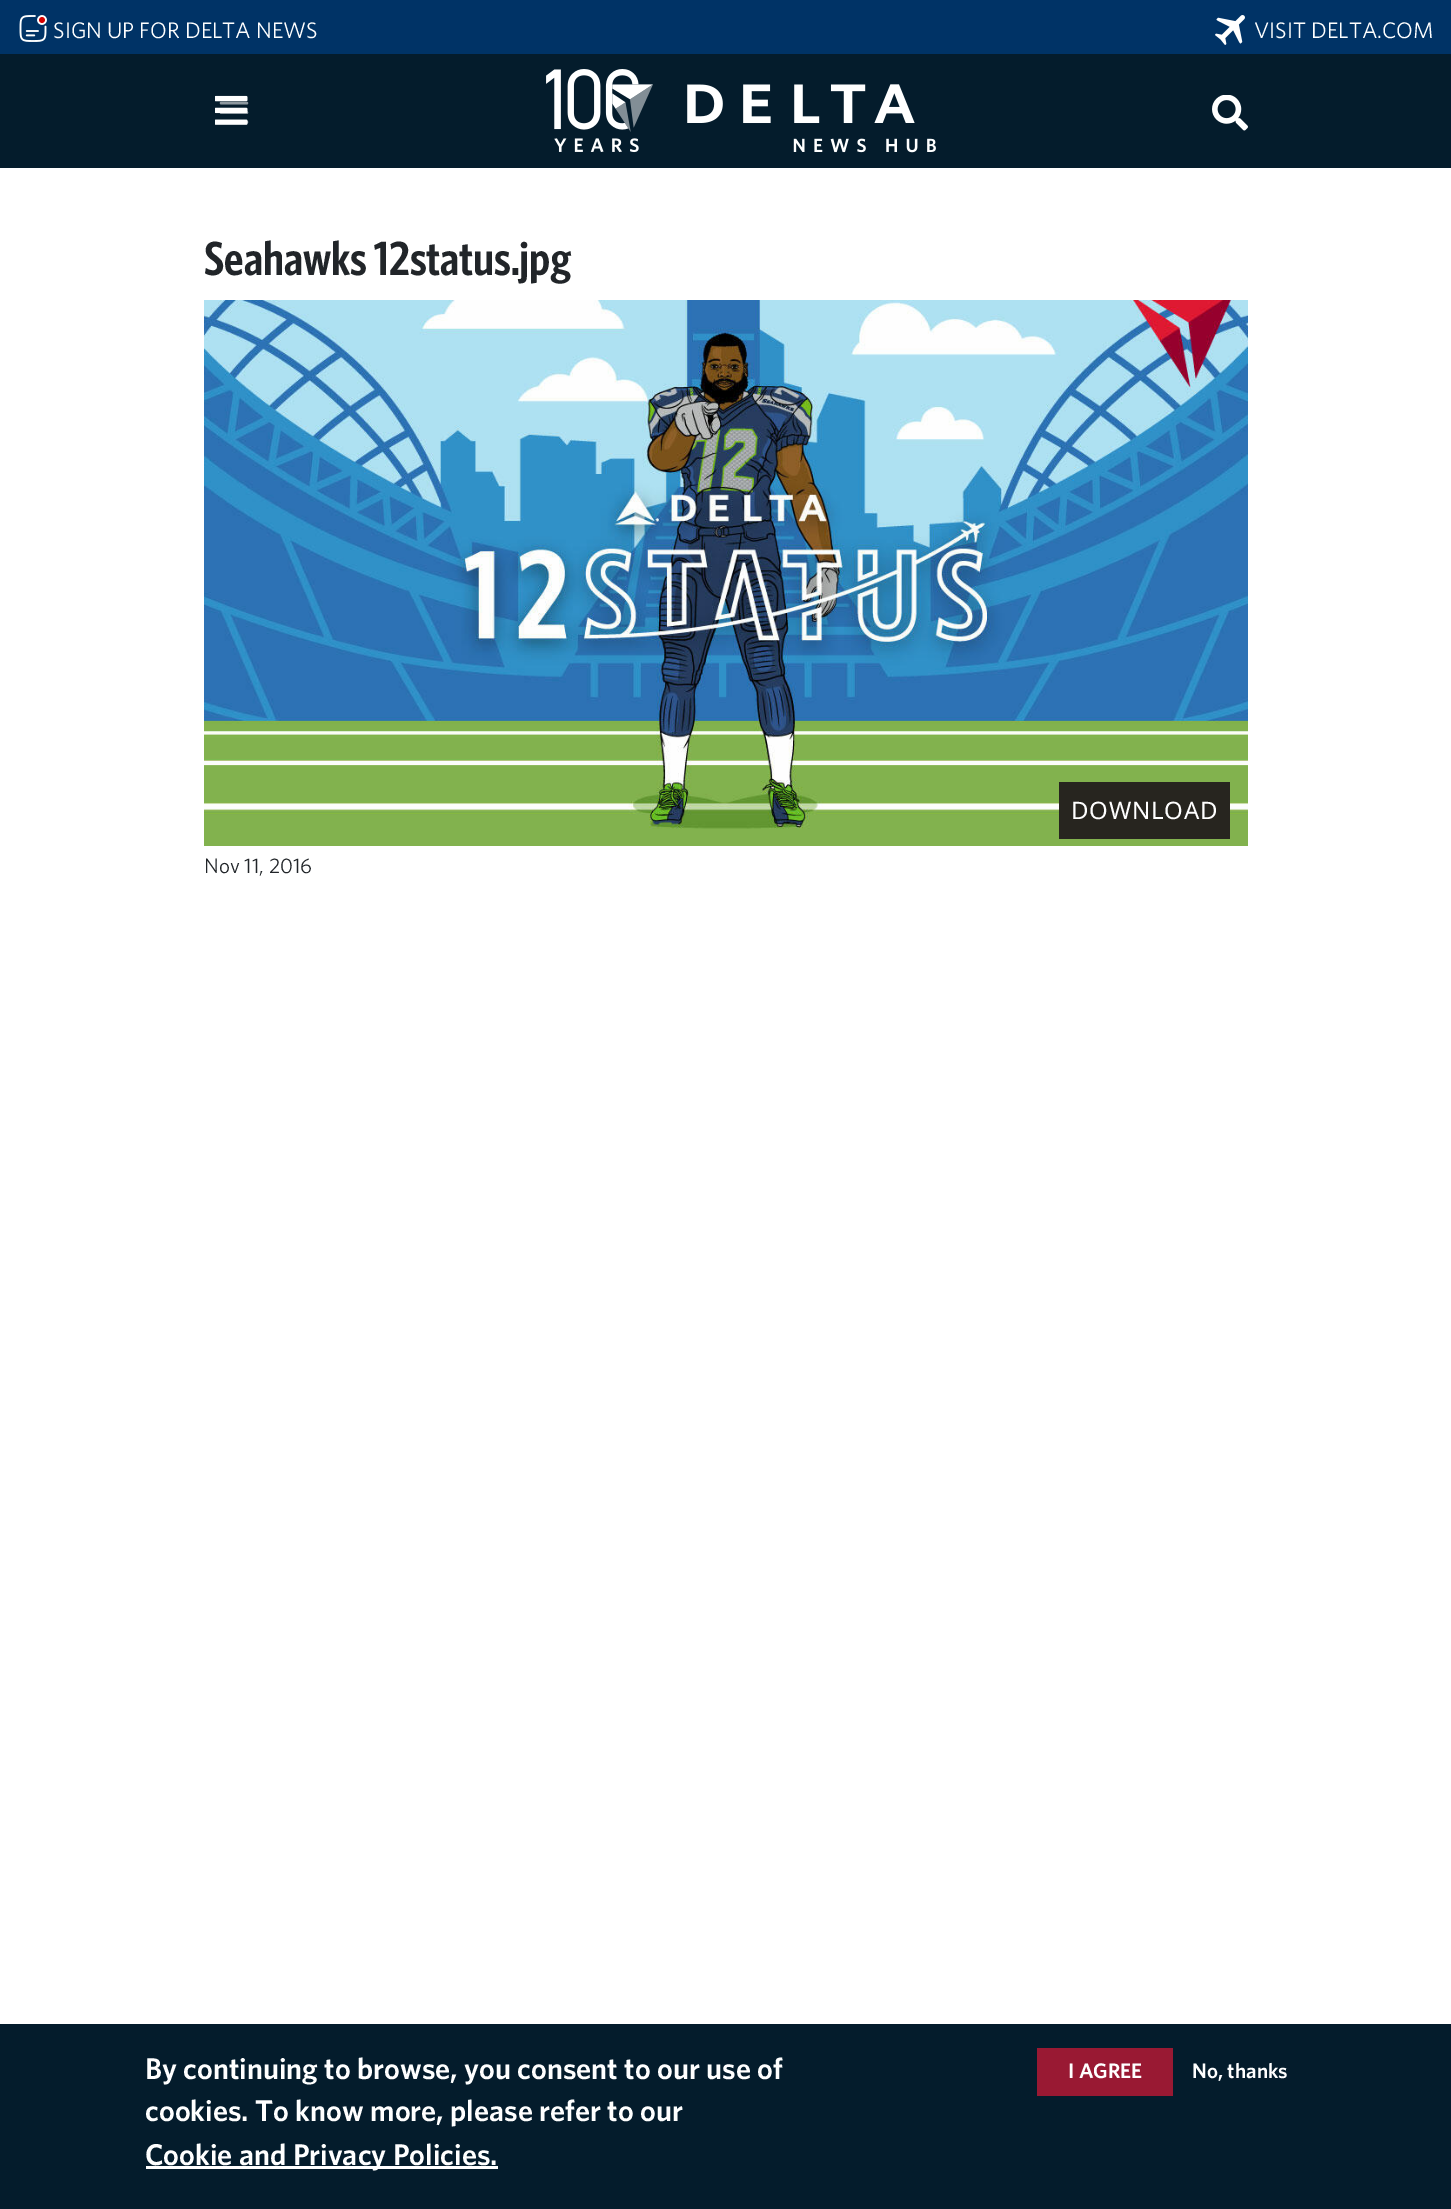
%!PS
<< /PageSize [1451 2209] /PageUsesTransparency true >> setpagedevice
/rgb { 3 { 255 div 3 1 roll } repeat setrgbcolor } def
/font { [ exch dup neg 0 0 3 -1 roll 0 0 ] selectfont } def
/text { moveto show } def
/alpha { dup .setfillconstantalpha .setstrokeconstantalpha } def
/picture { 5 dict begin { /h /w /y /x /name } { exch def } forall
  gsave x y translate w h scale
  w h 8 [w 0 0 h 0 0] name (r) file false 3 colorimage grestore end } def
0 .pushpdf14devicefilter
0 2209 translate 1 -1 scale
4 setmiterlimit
255 255 255 rgb
0 0 1451 2209 rectfill
0 51 102 rgb
0 0 1451 54 rectfill
(img_01.rgb) 19 15 28 27 picture
(img_02.rgb) 1215 15 30 30 picture
4 28 44 rgb
0 54 1451 114 rectfill
(img_03.rgb) 215 95 33 30 picture
0.55 alpha
255 255 255 rgb
2.4 setlinewidth
1 setlinecap
221 103 moveto 26 0 rlineto 221 112.5 moveto 26 0 rlineto 221 122 moveto 26 0 rlineto stroke
1 alpha
(img_04.rgb) 546 69 390 84 picture
(img_05.rgb) 1212 95 36 36 picture
(img_06.rgb) 204 300 1044 546 picture
39 37 31 rgb
1059 782 171 57 rectfill
4 28 44 rgb
0 2024 1451 185 rectfill
255 255 255 rgb
146 2166 352 3 rectfill
153 25 51 rgb
1037 2048 136 48 rectfill
/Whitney-Regular 22.5 font
255 255 255 rgb
(SIGN UP FOR DELTA NEWS) 53 38 text
(VISIT DELTA.COM) 1254 38 text
/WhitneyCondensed-SemiBold 48 font
33 37 41 rgb
(Seahawks 12status.jpg) 204 275 text
/NotoSans-Regular 24 font
255 255 255 rgb
1071 819 moveto 0.75 0 (DOWNLOAD) ashow
/Whitney-Regular 21 font
33 37 41 rgb
(Nov 11, 2016) 204 873 text
/Whitney-SemiBold 30 font
255 255 255 rgb
(By continuing to browse, you consent to our use of) 145 2079 text
(cookies. To know more, please refer to our) 145 2121 text
(Cookie and Privacy Policies.) 145 2165 text
/Whitney-SemiBold 21 font
(I AGREE) 1068 2078 text
(No, thanks) 1192 2078 text
.poppdf14devicefilter showpage
